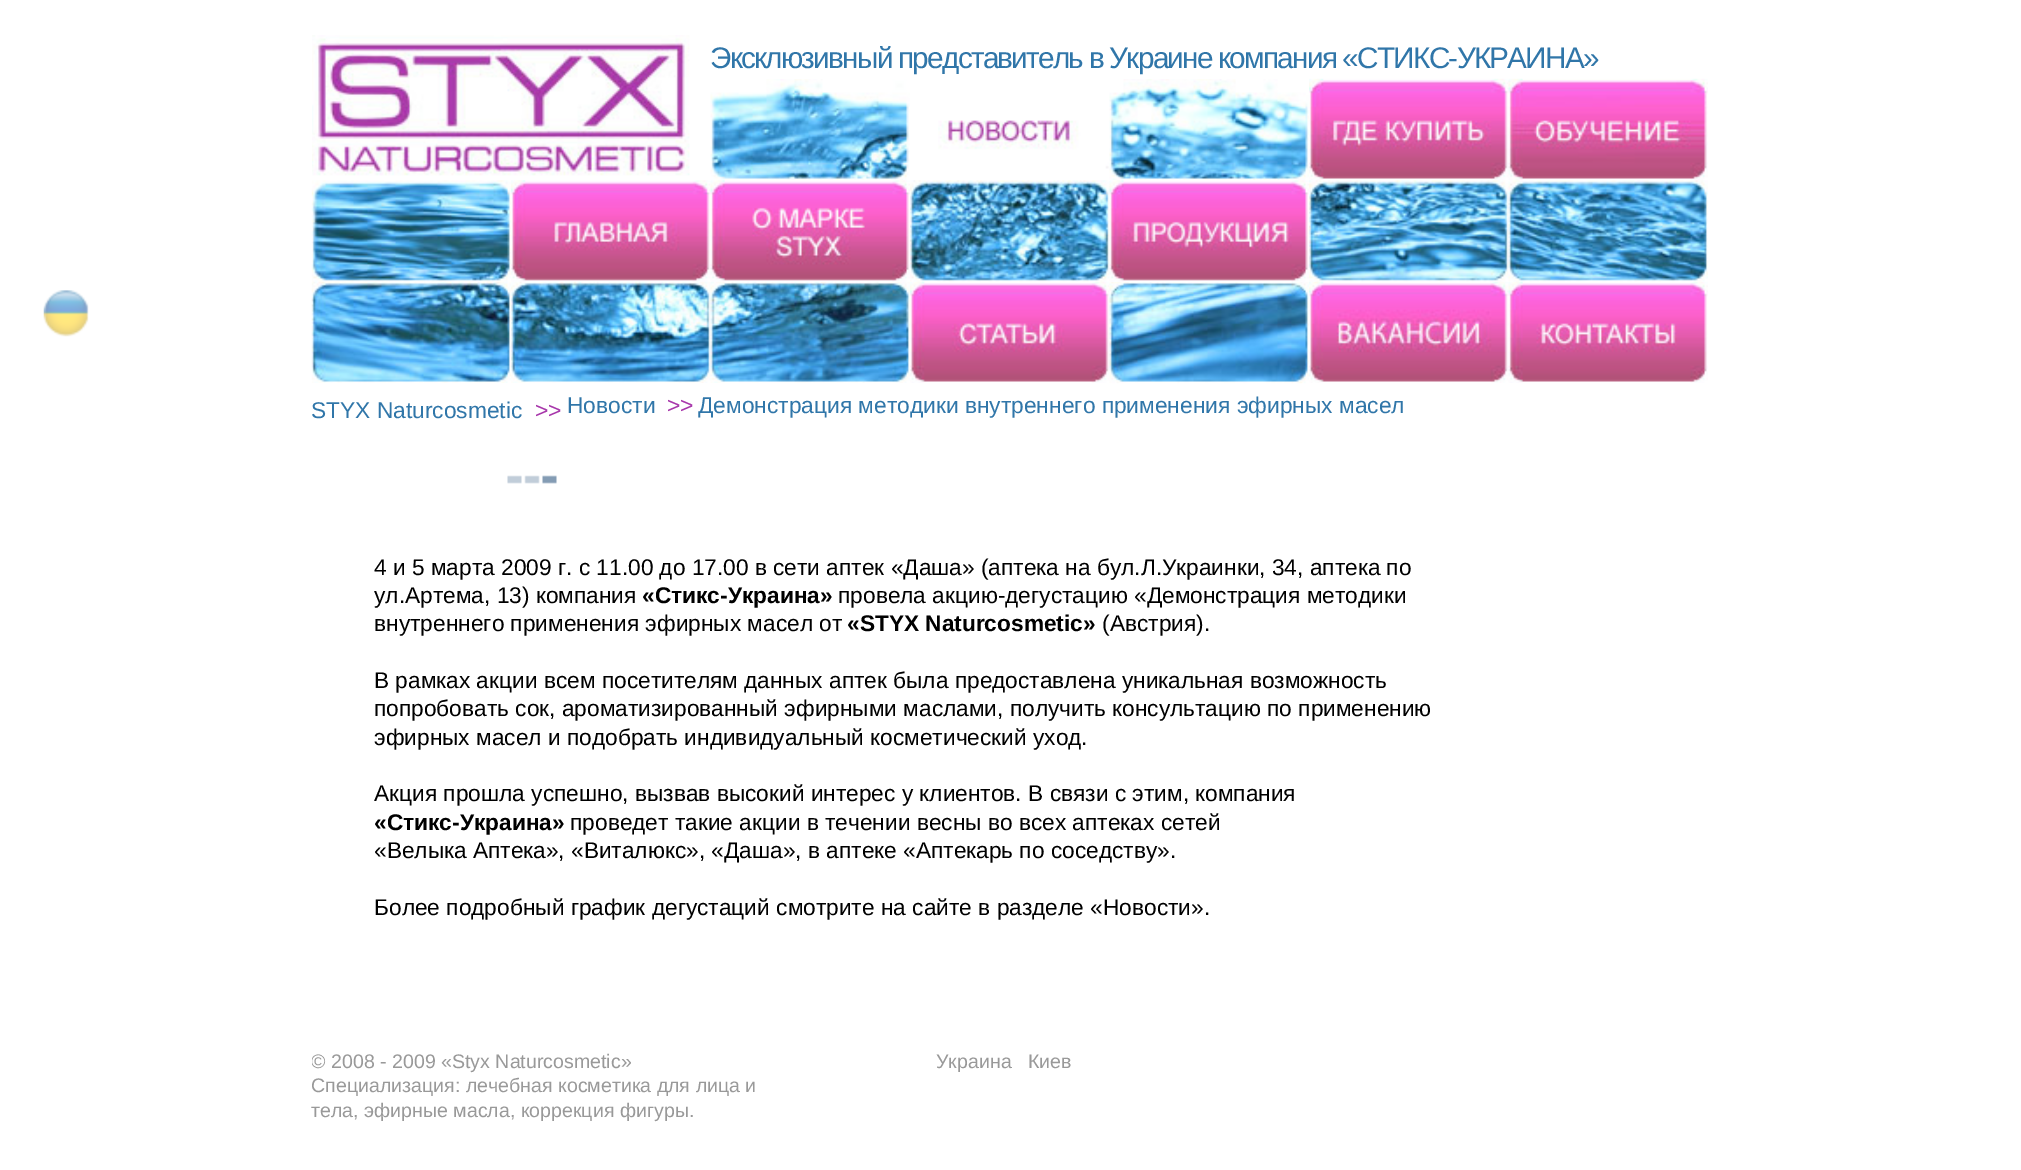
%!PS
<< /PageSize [2021 1170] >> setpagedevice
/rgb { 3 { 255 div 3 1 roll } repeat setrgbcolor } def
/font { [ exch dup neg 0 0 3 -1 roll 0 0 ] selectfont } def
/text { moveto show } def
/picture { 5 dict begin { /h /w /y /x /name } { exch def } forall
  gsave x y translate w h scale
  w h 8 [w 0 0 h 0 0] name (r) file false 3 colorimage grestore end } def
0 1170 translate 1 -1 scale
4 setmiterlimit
255 255 255 rgb
0 0 2021 1170 rectfill
(img_01.rgb) 43 290 46 47 picture
(img_02.rgb) 312 35 378 141 picture
(img_03.rgb) 710 79 200 101 picture
(img_04.rgb) 938 120 171 49 picture
(img_05.rgb) 1109 79 200 101 picture
(img_06.rgb) 1309 78 200 102 picture
(img_07.rgb) 1508 78 200 102 picture
(img_08.rgb) 311 180 200 102 picture
(img_09.rgb) 511 180 200 102 picture
(img_10.rgb) 710 180 200 102 picture
(img_11.rgb) 910 180 200 102 picture
(img_12.rgb) 1109 180 200 102 picture
(img_13.rgb) 1309 180 200 102 picture
(img_14.rgb) 1508 180 200 102 picture
(img_15.rgb) 311 281 200 102 picture
(img_16.rgb) 511 281 200 102 picture
(img_17.rgb) 710 281 200 102 picture
(img_18.rgb) 910 281 200 102 picture
(img_19.rgb) 1109 282 200 102 picture
(img_20.rgb) 1309 281 200 102 picture
(img_21.rgb) 1508 281 200 102 picture
(img_22.rgb) 507 475 50 9 picture
/LiberationSans-Regular 29.75 font
48 118 169 rgb
710 68 moveto -1.75 0 (Эксклюзивный представитель в Украине компания «СТИКС-УКРАИНА») ashow
/LiberationSans-Regular 22.75 font
(STYX Naturсosmetic) 311 418 text
168 55 171 rgb
(>>) 535 418 text
48 118 169 rgb
(Новости) 567 413 text
168 55 171 rgb
(>>) 667 413 text
48 118 169 rgb
(Демонстрация методики внутреннего применения эфирных масел) 698 413 text
/LiberationSans-Regular 22.7 font
0 0 0 rgb
(4 и 5 марта 2009 г. с 11.00 до 17.00 в сети аптек «Даша» \(аптека на бул.Л.Украинки, 34, аптека по) 374 575 text
(ул.Артема, 13\) компания) 374 603 text
/LiberationSans-Bold 22.7 font
(«Стикс-Украина») 642 603 text
/LiberationSans-Regular 22.7 font
(провела акцию-дегустацию «Демонстрация методики) 838 603 text
(внутреннего применения эфирных масел от) 374 631 text
/LiberationSans-Bold 22.7 font
(«STYX Naturcosmetic») 847 631 text
/LiberationSans-Regular 22.7 font
(\(Австрия\).) 1102 631 text
(В рамках акции всем посетителям данных аптек была предоставлена уникальная возможность) 374 688 text
(попробовать сок, ароматизированный эфирными маслами, получить консультацию по применению) 374 716 text
(эфирных масел и подобрать индивидуальный косметический уход.) 374 745 text
(Акция прошла успешно, вызвав высокий интерес у клиентов. В связи с этим, компания) 374 801 text
/LiberationSans-Bold 22.7 font
(«Стикс-Украина») 374 830 text
/LiberationSans-Regular 22.7 font
(проведет такие акции в течении весны во всех аптеках сетей) 570 830 text
(«Велыка Аптека», «Виталюкс», «Даша», в аптеке «Аптекарь по соседству».) 374 858 text
(Более подробный график дегустаций смотрите на сайте в разделе «Новости».) 374 915 text
gsave
312 1048 1400 74 rectclip
/LiberationSans-Regular 19.6 font
153 153 153 rgb
(© 2008 - 2009 «Styx Naturcosmetic») 311 1068 text
(Специализация: лечебная косметика для лица и) 311 1092 text
grestore
/LiberationSans-Regular 19.6 font
153 153 153 rgb
(тела, эфирные масла, коррекция фигуры.) 311 1117 text
(Украина   Киев) 936 1068 text
showpage
